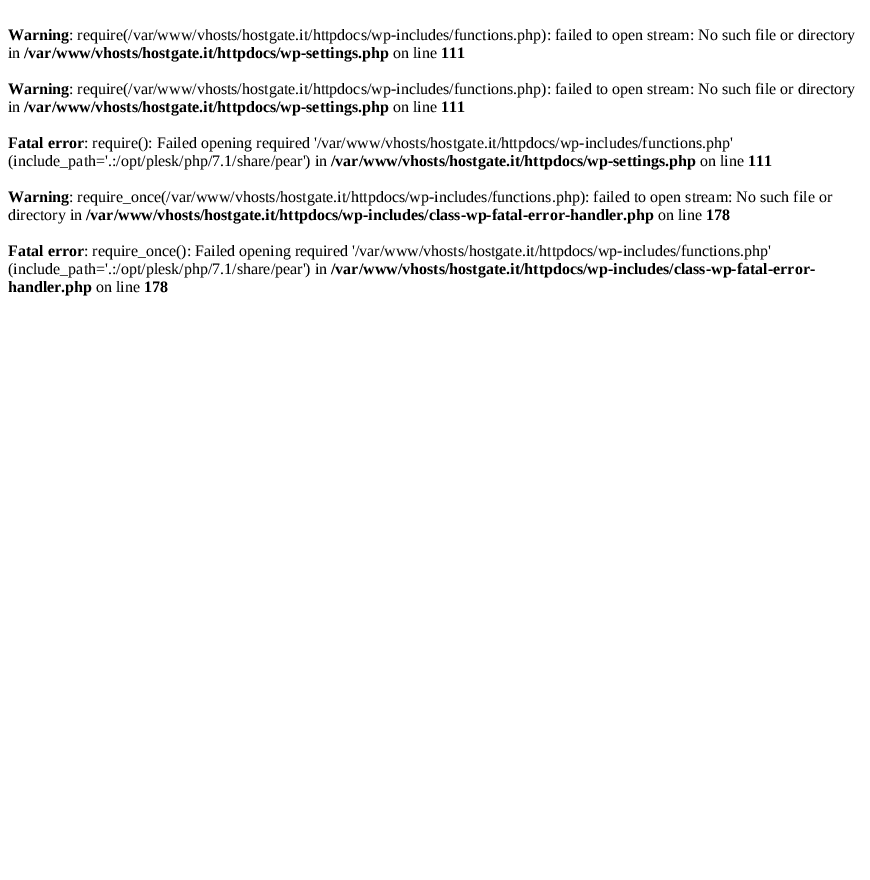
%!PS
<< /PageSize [870 880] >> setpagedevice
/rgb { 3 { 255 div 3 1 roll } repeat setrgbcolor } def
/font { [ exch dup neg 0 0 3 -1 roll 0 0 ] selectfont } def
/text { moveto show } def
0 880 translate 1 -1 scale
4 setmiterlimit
255 255 255 rgb
0 0 870 880 rectfill
/LiberationSerif-Bold 16 font
0 0 0 rgb
(Warning) 8 40 text
/LiberationSerif-Regular 16 font
(: require\(/var/www/vhosts/hostgate.it/httpdocs/wp-includes/functions.php\): failed to open stream: No such file or directory) 69 40 text
(in) 8 58 text
/LiberationSerif-Bold 16 font
(/var/www/vhosts/hostgate.it/httpdocs/wp-settings.php) 24 58 text
/LiberationSerif-Regular 16 font
(on line) 393 58 text
/LiberationSerif-Bold 16 font
(111) 441 58 text
(Warning) 8 94 text
/LiberationSerif-Regular 16 font
(: require\(/var/www/vhosts/hostgate.it/httpdocs/wp-includes/functions.php\): failed to open stream: No such file or directory) 69 94 text
(in) 8 112 text
/LiberationSerif-Bold 16 font
(/var/www/vhosts/hostgate.it/httpdocs/wp-settings.php) 24 112 text
/LiberationSerif-Regular 16 font
(on line) 393 112 text
/LiberationSerif-Bold 16 font
(111) 441 112 text
(Fatal error) 8 148 text
/LiberationSerif-Regular 16 font
(: require\(\): Failed opening required '/var/www/vhosts/hostgate.it/httpdocs/wp-includes/functions.php') 84 148 text
(\(include_path='.:/opt/plesk/php/7.1/share/pear'\) in) 8 166 text
/LiberationSerif-Bold 16 font
(/var/www/vhosts/hostgate.it/httpdocs/wp-settings.php) 331 166 text
/LiberationSerif-Regular 16 font
(on line) 700 166 text
/LiberationSerif-Bold 16 font
(111) 748 166 text
(Warning) 8 202 text
/LiberationSerif-Regular 16 font
(: require_once\(/var/www/vhosts/hostgate.it/httpdocs/wp-includes/functions.php\): failed to open stream: No such file or) 69 202 text
(directory in) 8 220 text
/LiberationSerif-Bold 16 font
(/var/www/vhosts/hostgate.it/httpdocs/wp-includes/class-wp-fatal-error-handler.php) 86 220 text
/LiberationSerif-Regular 16 font
(on line) 658 220 text
/LiberationSerif-Bold 16 font
(178) 706 220 text
(Fatal error) 8 256 text
/LiberationSerif-Regular 16 font
(: require_once\(\): Failed opening required '/var/www/vhosts/hostgate.it/httpdocs/wp-includes/functions.php') 84 256 text
(\(include_path='.:/opt/plesk/php/7.1/share/pear'\) in) 8 274 text
/LiberationSerif-Bold 16 font
(/var/www/vhosts/hostgate.it/httpdocs/wp-includes/class-wp-fatal-error-) 331 274 text
(handler.php) 8 292 text
/LiberationSerif-Regular 16 font
(on line) 96 292 text
/LiberationSerif-Bold 16 font
(178) 144 292 text
showpage
